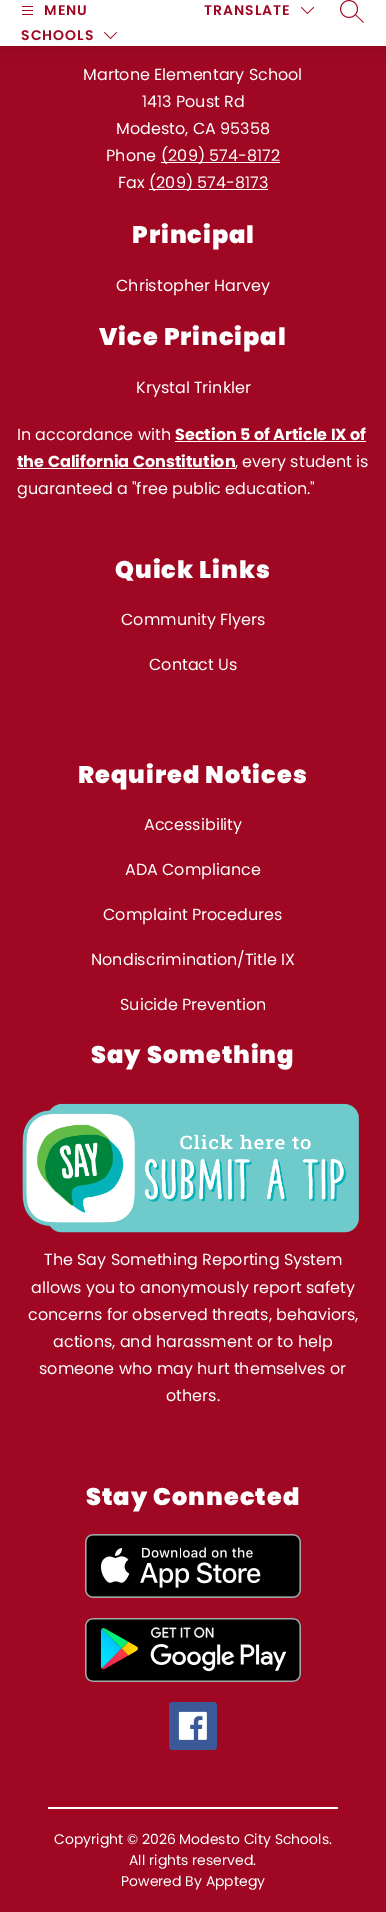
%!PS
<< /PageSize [386 1912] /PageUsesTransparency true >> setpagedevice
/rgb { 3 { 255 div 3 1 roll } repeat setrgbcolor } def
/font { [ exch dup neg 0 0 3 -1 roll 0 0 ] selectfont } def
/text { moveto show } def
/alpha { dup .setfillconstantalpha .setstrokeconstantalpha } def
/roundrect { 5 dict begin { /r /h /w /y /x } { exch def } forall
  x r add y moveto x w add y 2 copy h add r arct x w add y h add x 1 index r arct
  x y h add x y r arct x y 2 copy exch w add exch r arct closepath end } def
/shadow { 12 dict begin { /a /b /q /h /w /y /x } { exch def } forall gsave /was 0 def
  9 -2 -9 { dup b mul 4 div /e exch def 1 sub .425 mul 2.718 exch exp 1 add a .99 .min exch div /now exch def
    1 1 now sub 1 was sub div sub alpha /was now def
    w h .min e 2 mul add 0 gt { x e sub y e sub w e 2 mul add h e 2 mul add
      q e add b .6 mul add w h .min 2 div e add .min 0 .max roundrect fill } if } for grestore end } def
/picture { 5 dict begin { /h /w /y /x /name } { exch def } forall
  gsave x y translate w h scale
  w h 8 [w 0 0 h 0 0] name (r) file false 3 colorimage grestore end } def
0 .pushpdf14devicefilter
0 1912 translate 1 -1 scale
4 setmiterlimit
159 7 34 rgb
0 0 386 1912 rectfill
0 0 0 rgb
0 4 386 46 0 5 0.1 shadow
255 255 255 rgb
0 0 386 46 rectfill
(img_01.rgb) 22 6 11 9 picture
(img_02.rgb) 104 32 13 7 picture
(img_02.rgb) 301 7 13 7 picture
(img_03.rgb) 340 0 24 23 picture
161 162 119 1 rectfill
149 189 119 1 rectfill
175 441 191 1 rectfill
17 468 218 1 rectfill
(img_04.rgb) 22 1103 337 130 picture
(img_05.rgb) 85 1534 216 64 picture
(img_06.rgb) 85 1618 216 64 picture
(img_07.rgb) 169 1702 48 48 picture
48 1807 290 2 rectfill
/Poppins-SemiBold 14 font
159 7 34 rgb
44 15 moveto 1 0 (MENU) ashow
21 40 moveto 1 0 (SCHOOLS) ashow
204 15 moveto 1 0 (TRANSLATE) ashow
/Poppins-Regular 16 font
255 255 255 rgb
(Martone Elementary School) 83 80 text
(1413 Poust Rd) 142 107 text
(Modesto, CA 95358) 116 134 text
(Phone) 106 161 text
(\(209\) 574-8172) 161 161 text
(Fax) 118 188 text
(\(209\) 574-8173) 149 188 text
/Poppins-Black 24 font
132 243 moveto 1 0 (Principal) ashow
/Poppins-Regular 16 font
(Christopher Harvey) 116 291 text
/Poppins-Black 24 font
99 345 moveto 1 0 (Vice Principal) ashow
/Poppins-Regular 16 font
(Krystal Trinkler) 136 393 text
(In accordance with) 17 440 text
/Poppins-Bold 16 font
(Section 5 of Article IX of) 175 440 text
(the California Constitution) 17 467 text
/Poppins-Regular 16 font
(, every student is) 235 467 text
(guaranteed a "free public education.") 17 494 text
/Poppins-Black 24 font
115 578 moveto 1 0 (Quick Links) ashow
/Poppins-Regular 16 font
(Community Flyers) 121 625 text
(Contact Us) 149 670 text
/Poppins-Black 24 font
78 783 moveto 1 0 (Required Notices) ashow
/Poppins-Regular 16 font
(Accessibility) 144 830 text
(ADA Compliance) 125 875 text
(Complaint Procedures) 103 920 text
(Nondiscrimination/Title IX) 91 965 text
(Suicide Prevention) 120 1010 text
/Poppins-Black 24 font
91 1063 moveto 1 0 (Say Something) ashow
/Poppins-Regular 16 font
(The Say Something Reporting System) 44 1265 text
(allows you to anonymously report safety) 31 1293 text
(concerns for observed threats, behaviors,) 28 1320 text
(actions, and harassment or to help) 53 1347 text
(someone who may hurt themselves or) 39 1374 text
(others.) 166 1401 text
/Poppins-Black 24 font
86 1505 moveto 1 0 (Stay Connected) ashow
/Poppins-Regular 14 font
(Copyright © 2026 Modesto City Schools.) 54 1844 text
(All rights reserved.) 129 1865 text
(Powered By Apptegy) 121 1886 text
.poppdf14devicefilter showpage
